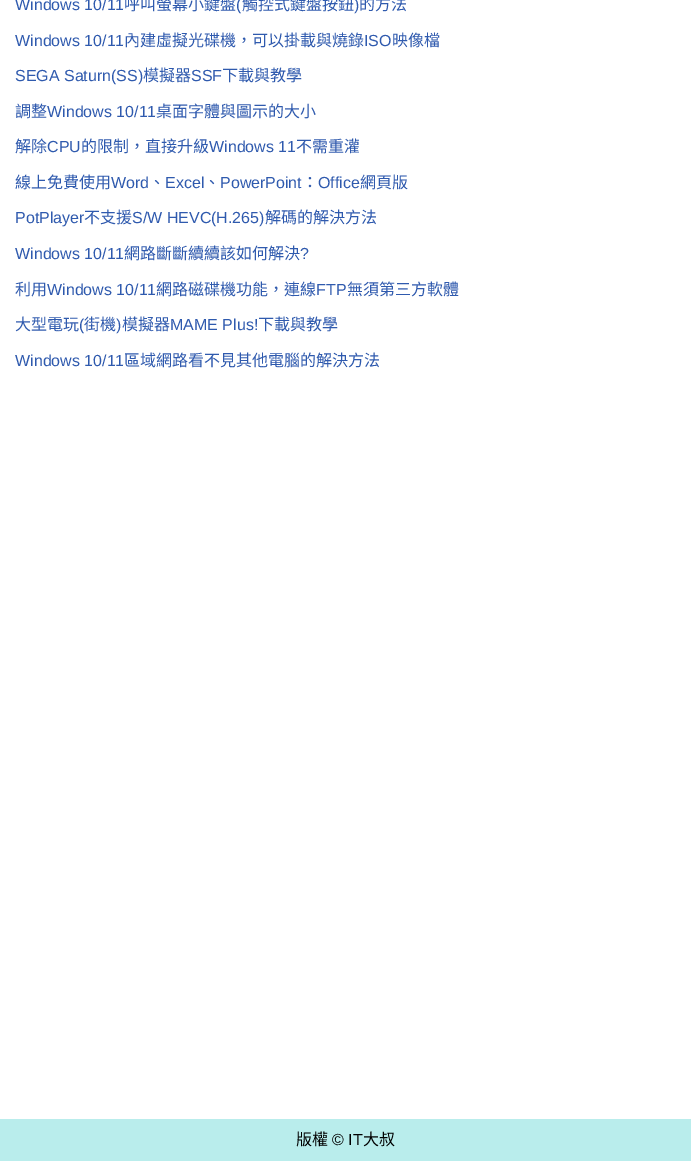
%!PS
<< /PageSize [691 1161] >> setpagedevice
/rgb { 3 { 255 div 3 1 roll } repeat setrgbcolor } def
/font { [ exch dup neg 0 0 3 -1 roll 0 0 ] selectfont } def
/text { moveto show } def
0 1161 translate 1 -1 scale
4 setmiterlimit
255 255 255 rgb
0 0 691 1161 rectfill
185 237 236 rgb
0 1119 691 42 rectfill
/LiberationSans-Regular 16 font
47 90 174 rgb
(Windows 10/11) 15 10 text
/NotoSansCJKTC-Regular 16 font
(呼叫螢幕小鍵盤) 124 10 text
/LiberationSans-Regular 16 font
(\() 236 10 text
/NotoSansCJKTC-Regular 16 font
(觸控式鍵盤按鈕) 242 10 text
/LiberationSans-Regular 16 font
(\)) 354 10 text
/NotoSansCJKTC-Regular 16 font
(的方法) 359 10 text
/LiberationSans-Regular 16 font
(Windows 10/11) 15 46 text
/NotoSansCJKTC-Regular 16 font
(內建虛擬光碟機，可以掛載與燒錄) 124 46 text
/LiberationSans-Regular 16 font
(ISO) 364 46 text
/NotoSansCJKTC-Regular 16 font
(映像檔) 392 46 text
/LiberationSans-Regular 16 font
(SEGA Saturn\(SS\)) 15 81 text
/NotoSansCJKTC-Regular 16 font
(模擬器) 143 81 text
/LiberationSans-Regular 16 font
(SSF) 191 81 text
/NotoSansCJKTC-Regular 16 font
(下載與教學) 222 81 text
(調整) 15 117 text
/LiberationSans-Regular 16 font
(Windows 10/11) 47 117 text
/NotoSansCJKTC-Regular 16 font
(桌面字體與圖示的大小) 156 117 text
(解除) 15 152 text
/LiberationSans-Regular 16 font
(CPU) 47 152 text
/NotoSansCJKTC-Regular 16 font
(的限制，直接升級) 81 152 text
/LiberationSans-Regular 16 font
(Windows 11) 209 152 text
/NotoSansCJKTC-Regular 16 font
(不需重灌) 296 152 text
(線上免費使用) 15 188 text
/LiberationSans-Regular 16 font
(Word) 111 188 text
/NotoSansCJKTC-Regular 16 font
(、) 149 188 text
/LiberationSans-Regular 16 font
(Excel) 165 188 text
/NotoSansCJKTC-Regular 16 font
(、) 204 188 text
/LiberationSans-Regular 16 font
(PowerPoint) 220 188 text
/NotoSansCJKTC-Regular 16 font
(：) 302 188 text
/LiberationSans-Regular 16 font
(Office) 318 188 text
/NotoSansCJKTC-Regular 16 font
(網頁版) 360 188 text
/LiberationSans-Regular 16 font
(PotPlayer) 15 223 text
/NotoSansCJKTC-Regular 16 font
(不支援) 84 223 text
/LiberationSans-Regular 16 font
(S/W HEVC\(H.265\)) 132 223 text
/NotoSansCJKTC-Regular 16 font
(解碼的解決方法) 265 223 text
/LiberationSans-Regular 16 font
(Windows 10/11) 15 259 text
/NotoSansCJKTC-Regular 16 font
(網路斷斷續續該如何解決) 124 259 text
/LiberationSans-Regular 16 font
(?) 300 259 text
/NotoSansCJKTC-Regular 16 font
(利用) 15 295 text
/LiberationSans-Regular 16 font
(Windows 10/11) 47 295 text
/NotoSansCJKTC-Regular 16 font
(網路磁碟機功能，連線) 156 295 text
/LiberationSans-Regular 16 font
(FTP) 316 295 text
/NotoSansCJKTC-Regular 16 font
(無須第三方軟體) 347 295 text
(大型電玩) 15 330 text
/LiberationSans-Regular 16 font
(\() 79 330 text
/NotoSansCJKTC-Regular 16 font
(街機) 84 330 text
/LiberationSans-Regular 16 font
(\)) 116 330 text
/NotoSansCJKTC-Regular 16 font
(模擬器) 122 330 text
/LiberationSans-Regular 16 font
(MAME Plus!) 170 330 text
/NotoSansCJKTC-Regular 16 font
(下載與教學) 258 330 text
/LiberationSans-Regular 16 font
(Windows 10/11) 15 366 text
/NotoSansCJKTC-Regular 16 font
(區域網路看不見其他電腦的解決方法) 124 366 text
0 0 0 rgb
(版權) 296 1145 text
/LiberationSans-Regular 16 font
(© IT) 332 1145 text
/NotoSansCJKTC-Regular 16 font
(大叔) 363 1145 text
showpage
